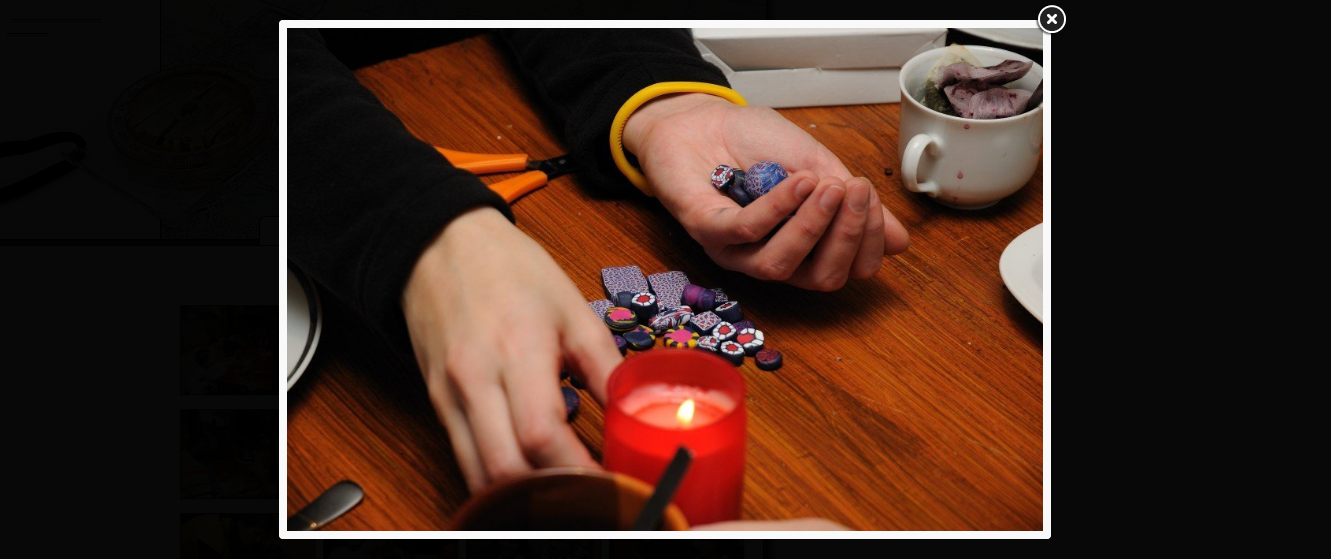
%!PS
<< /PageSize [1331 559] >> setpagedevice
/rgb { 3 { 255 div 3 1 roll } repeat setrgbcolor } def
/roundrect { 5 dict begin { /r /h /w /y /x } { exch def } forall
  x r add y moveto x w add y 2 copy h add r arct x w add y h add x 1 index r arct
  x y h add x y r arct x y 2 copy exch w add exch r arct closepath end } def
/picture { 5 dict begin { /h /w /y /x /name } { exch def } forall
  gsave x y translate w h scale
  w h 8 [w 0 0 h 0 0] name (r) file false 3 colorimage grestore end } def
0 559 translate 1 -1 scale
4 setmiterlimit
8 8 8 rgb
0 0 1331 559 rectfill
(img_01.rgb) 763 0 14 559 picture
(img_02.rgb) 0 0 766 187 picture
0 3 0 rgb
11 19 91 1 rectfill
[1 1] 0 setdash
11 21.5 moveto 91 0 rlineto stroke
7 33 42 1 rectfill
7 35.5 moveto 42 0 rlineto stroke
(img_03.rgb) 0 187 279 59 picture
(img_04.rgb) 259 216 20 29 picture
[] 0 setdash
180.5 305.5 134 89 rectstroke
(img_05.rgb) 181 306 98 88 picture
180.5 409.5 134 89 rectstroke
(img_06.rgb) 181 410 98 88 picture
180.5 513.5 134 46 rectstroke
(img_07.rgb) 181 514 133 45 picture
323.5 513.5 134 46 rectstroke
(img_08.rgb) 324 539 133 20 picture
466.5 513.5 134 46 rectstroke
(img_09.rgb) 467 539 133 20 picture
609.5 513.5 134 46 rectstroke
(img_10.rgb) 610 539 133 20 picture
249 249 249 rgb
279 20 772 519 4 roundrect fill
(img_12.rgb) 287 28 756 503 picture
(img_11.rgb) 1035 5 31 31 picture
showpage
